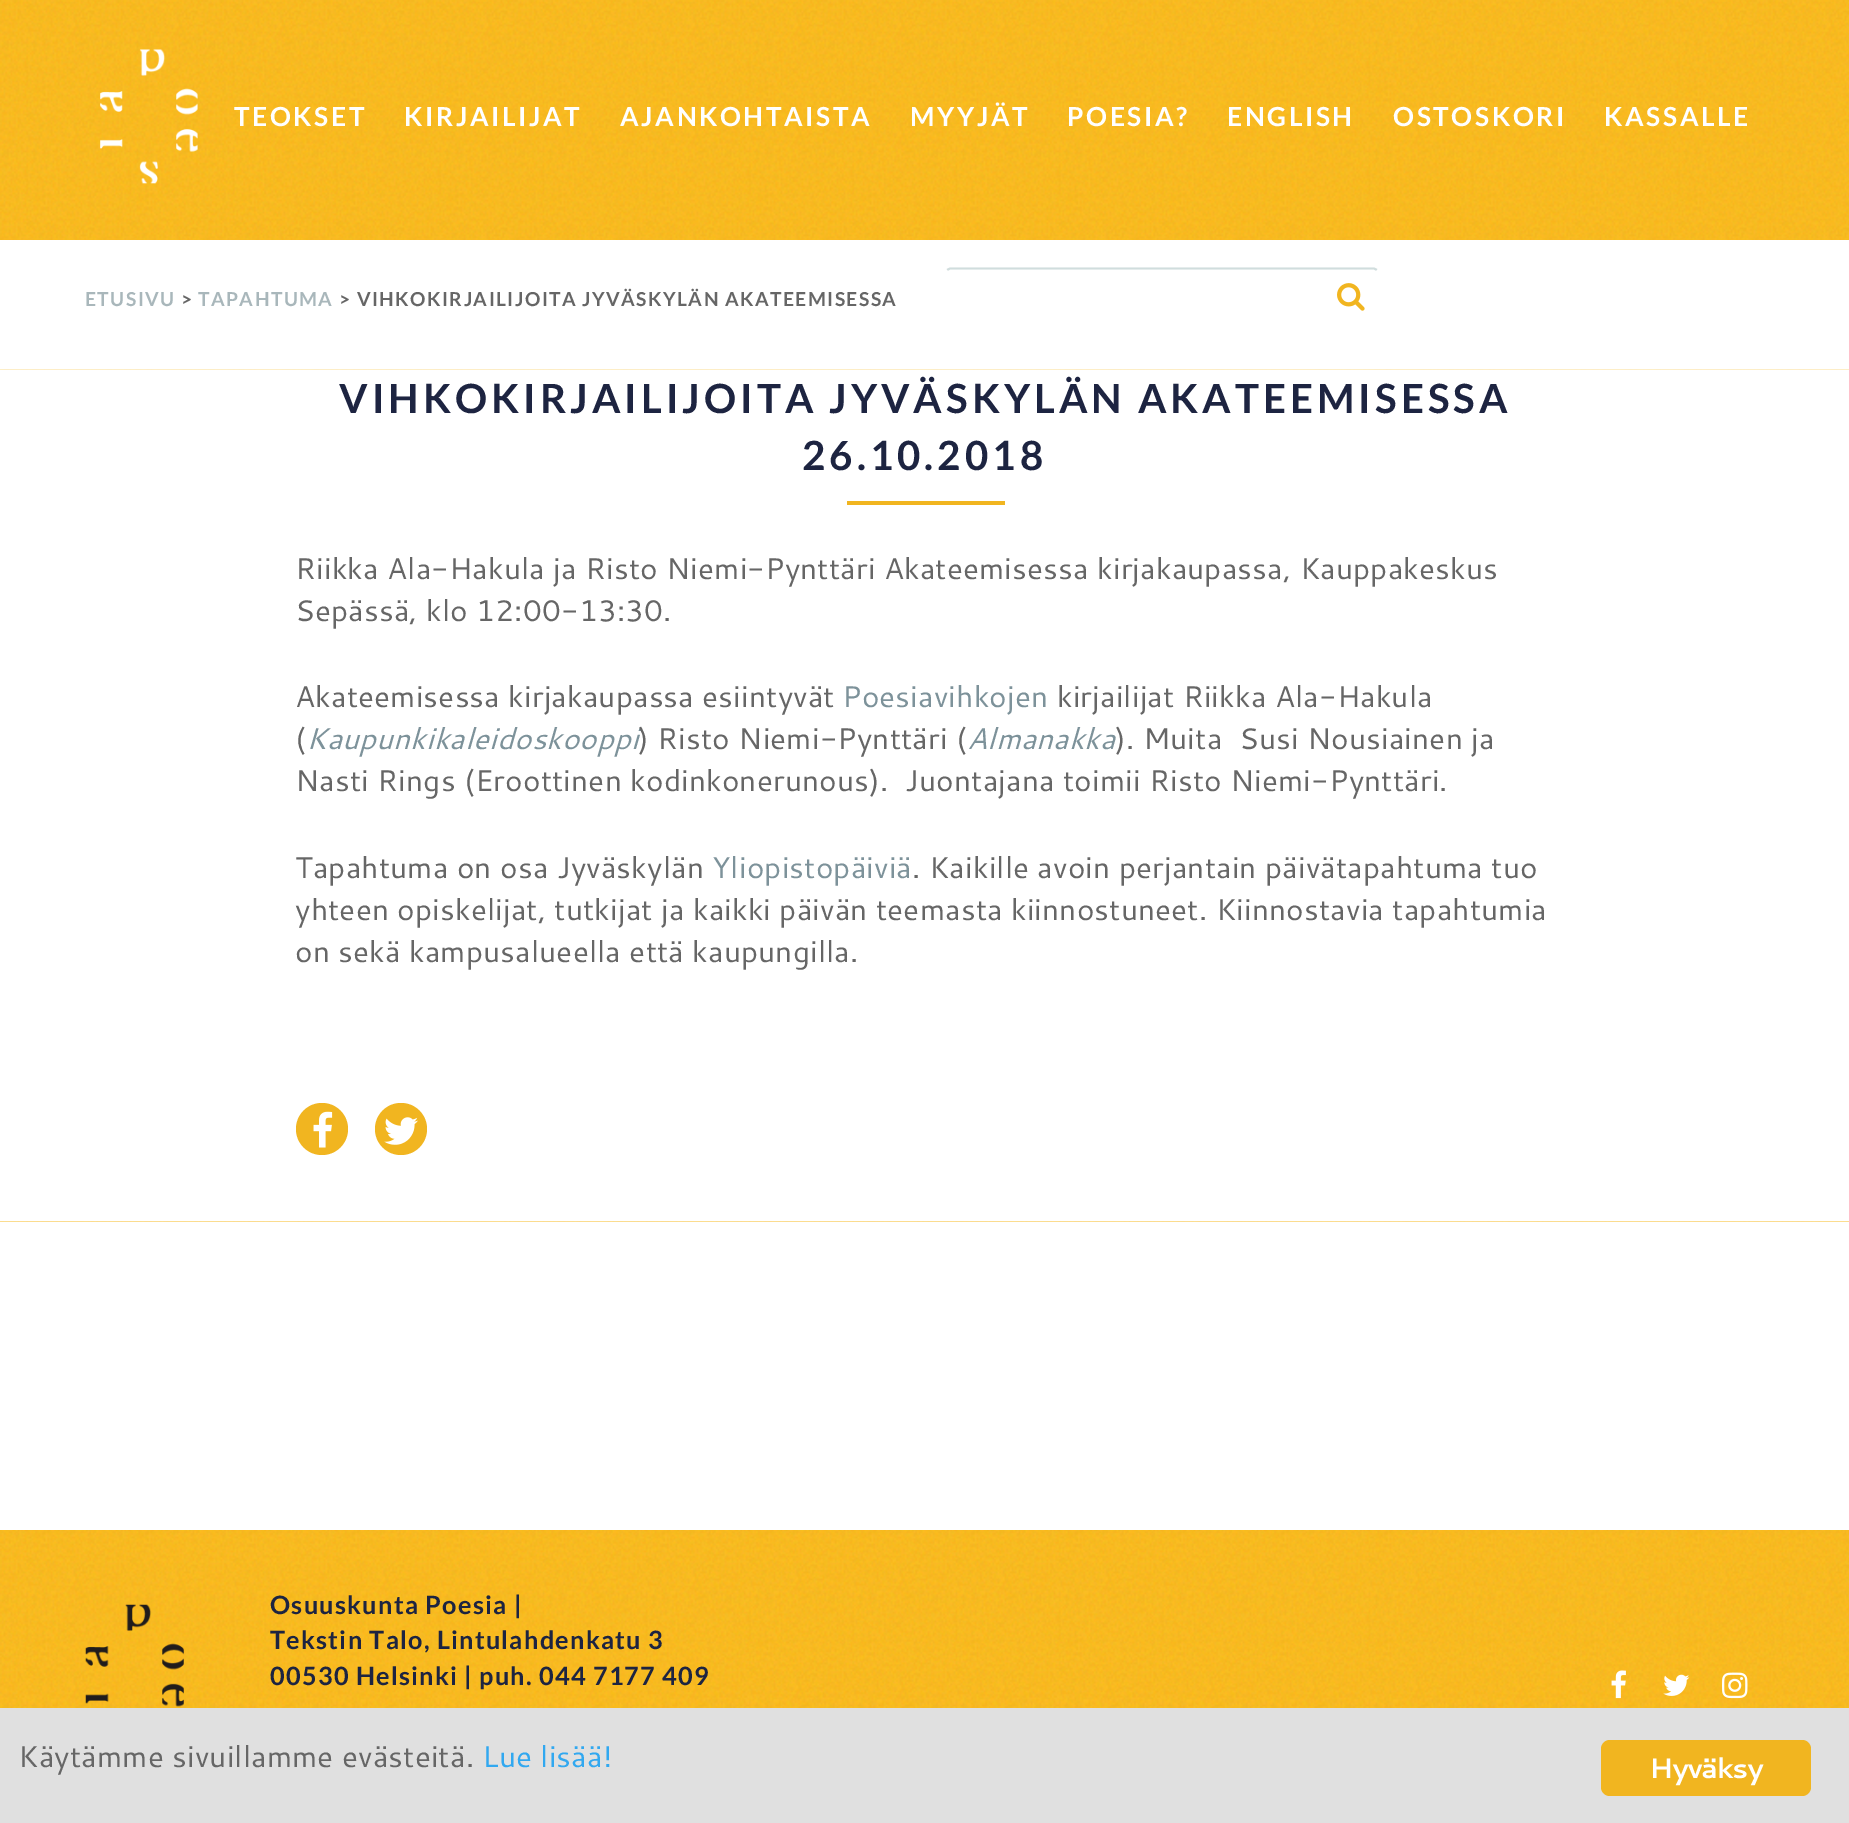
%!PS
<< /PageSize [1849 1823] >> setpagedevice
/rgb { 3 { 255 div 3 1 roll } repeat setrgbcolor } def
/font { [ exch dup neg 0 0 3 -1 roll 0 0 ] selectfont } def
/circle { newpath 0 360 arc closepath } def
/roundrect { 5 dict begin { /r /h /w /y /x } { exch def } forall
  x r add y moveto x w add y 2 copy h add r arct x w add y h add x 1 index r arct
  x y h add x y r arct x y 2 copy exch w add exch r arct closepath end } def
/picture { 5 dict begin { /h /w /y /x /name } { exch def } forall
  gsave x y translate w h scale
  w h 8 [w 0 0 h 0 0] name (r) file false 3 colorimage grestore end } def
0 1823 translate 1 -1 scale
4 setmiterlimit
255 255 255 rgb
0 0 1849 1823 rectfill
(img_01.rgb) 0 0 1849 370 picture
(img_02.rgb) 100 49 98 135 picture
0 240 1849 129 rectfill
208 221 221 rgb
1.8 setlinewidth
947 270 moveto 3 -1.5 rlineto 424 0 rlineto 3 1.5 rlineto stroke
(img_03.rgb) 1337 283 28 28 picture
255 255 255 rgb
1377 270 moveto 0.5 0.5 1 2 1 3 rcurveto 0 45.5 rlineto 0 1 -0.5 2.5 -1 3 rcurveto -1 1 -2 1.5 -3 1.5 rcurveto -424 0 rlineto -1 0 -2 -0.5 -3 -1.5 rcurveto -0.5 -0.5 -1 -2 -1 -3 rcurveto 0 -45.5 rlineto 0 -1 0.5 -2.5 1 -3 rcurveto stroke
241 181 32 rgb
847 501 158 4 rectfill
322 1129 26 circle fill
(img_04.rgb) 313 1111 20 37 picture
401 1129 26 circle fill
(img_05.rgb) 384 1117 34 28 picture
(img_06.rgb) 0 1221 1849 487 picture
255 255 255 rgb
0 1222 1849 308 rectfill
(img_07.rgb) 85 1604 99 103 picture
(img_08.rgb) 1611 1670 15 29 picture
(img_09.rgb) 1663 1674 27 22 picture
(img_10.rgb) 1722 1672 26 27 picture
224 224 224 rgb
0 1708 1849 115 rectfill
241 181 32 rgb
1601 1740 210 56 9 roundrect fill
/Lato-Bold 26.25 font
255 255 255 rgb
234 126 moveto 2.6 0 (TEOKSET) ashow
404 126 moveto 2.6 0 (KIRJAILIJAT) ashow
620 126 moveto 2.6 0 (AJANKOHTAISTA) ashow
910 126 moveto 2.6 0 (MYYJÄT) ashow
1067 126 moveto 2.6 0 (POESIA?) ashow
1227 126 moveto 2.6 0 (ENGLISH) ashow
1393 126 moveto 2.6 0 (OSTOSKORI) ashow
1604 126 moveto 2.6 0 (KASSALLE) ashow
/Lato-Bold 19.25 font
169 183 187 rgb
85 306 moveto 1.45 0 (ETUSIVU) ashow
102 102 102 rgb
181 306 moveto 1.45 0 (>) ashow
169 183 187 rgb
198 306 moveto 1.45 0 (TAPAHTUMA) ashow
102 102 102 rgb
339 306 moveto 1.45 0 (> VIHKOKIRJAILIJOITA JYVÄSKYLÄN AKATEEMISESSA) ashow
/Lato-Bold 40.25 font
29 36 65 rgb
339 413 moveto 4 0 (VIHKOKIRJAILIJOITA JYVÄSKYLÄN AKATEEMISESSA) ashow
802 470 moveto 4 0 (26.10.2018) ashow
/Cantarell-Regular 29.75 font
102 102 102 rgb
295 579 moveto 0.15 0 (Riikka Ala-Hakula ja Risto Niemi-Pynttäri Akateemisessa kirjakaupassa, Kauppakeskus) ashow
295 621 moveto 0.15 0 (Sepässä, klo 12:00-13:30.) ashow
295 707 moveto 0.15 0 (Akateemisessa kirjakaupassa esiintyvät) ashow
125 146 154 rgb
842 707 moveto 0.15 0 (Poesiavihkojen) ashow
102 102 102 rgb
1057 707 moveto 0.15 0 (kirjailijat Riikka Ala-Hakula) ashow
295 749 moveto 0.15 0 (\() ashow
/Cantarell-Italic 29.75 font
125 146 154 rgb
306 749 moveto 0.15 0 (Kaupunkikaleidoskooppi) ashow
/Cantarell-Regular 29.75 font
102 102 102 rgb
638 749 moveto 0.15 0 (\) Risto Niemi-Pynttäri \() ashow
/Cantarell-Italic 29.75 font
125 146 154 rgb
967 749 moveto 0.15 0 (Almanakka) ashow
/Cantarell-Regular 29.75 font
102 102 102 rgb
1115 749 moveto 0.15 0 (\). Muita  Susi Nousiainen ja) ashow
295 791 moveto 0.15 0 (Nasti Rings \(Eroottinen kodinkonerunous\).  Juontajana toimii Risto Niemi-Pynttäri.) ashow
295 878 moveto 0.15 0 (Tapahtuma on osa Jyväskylän) ashow
125 146 154 rgb
712 878 moveto 0.15 0 (Yliopistopäiviä) ashow
102 102 102 rgb
912 878 moveto 0.15 0 (. Kaikille avoin perjantain päivätapahtuma tuo) ashow
295 920 moveto 0.15 0 (yhteen opiskelijat, tutkijat ja kaikki päivän teemasta kiinnostuneet. Kiinnostavia tapahtumia) ashow
295 962 moveto 0.15 0 (on sekä kampusalueella että kaupungilla.) ashow
/Lato-Bold 25.25 font
29 36 65 rgb
270 1614 moveto 1.25 0 (Osuuskunta Poesia |) ashow
270 1649 moveto 1.25 0 (Tekstin Talo, Lintulahdenkatu 3) ashow
270 1685 moveto 1.25 0 (00530 Helsinki | puh. 044 7177 409) ashow
/Cantarell-Regular 29.75 font
102 102 102 rgb
18 1767 moveto 0.15 0 (Käytämme sivuillamme evästeitä.) ashow
49 168 240 rgb
482 1767 moveto 0.15 0 (Lue lisää!) ashow
/Cantarell-Bold 28 font
255 255 255 rgb
1649 1778 moveto -1.5 0 (Hyväksy) ashow
showpage
